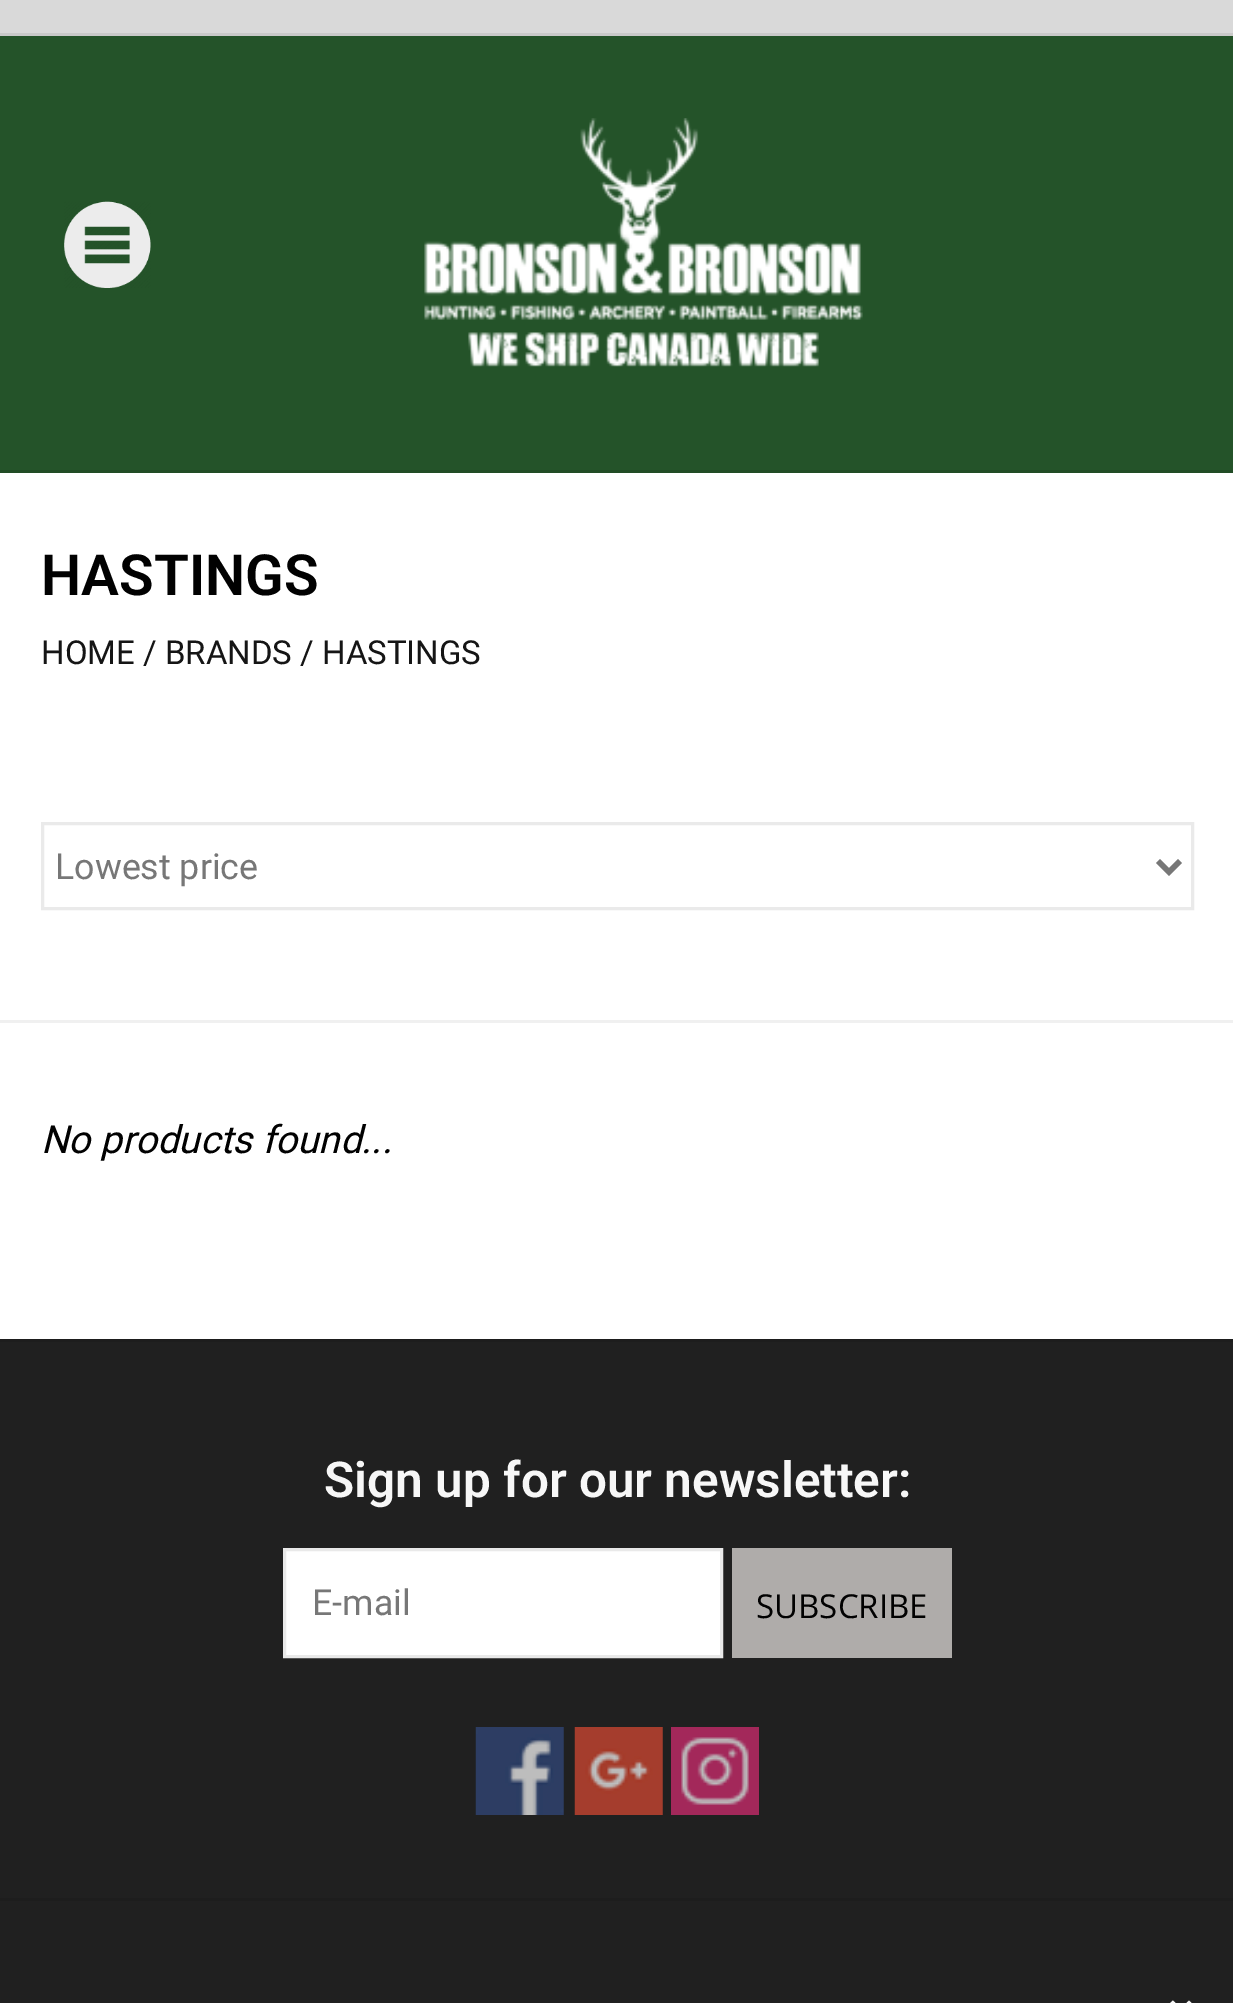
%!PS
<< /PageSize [1233 2003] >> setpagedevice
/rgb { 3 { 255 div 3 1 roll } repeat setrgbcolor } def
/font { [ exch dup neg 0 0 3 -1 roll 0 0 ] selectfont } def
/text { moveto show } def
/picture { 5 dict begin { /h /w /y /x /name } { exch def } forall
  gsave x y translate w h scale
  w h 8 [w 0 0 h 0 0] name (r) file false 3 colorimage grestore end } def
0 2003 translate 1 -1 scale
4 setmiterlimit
36 83 41 rgb
0 0 1233 2003 rectfill
217 217 217 rgb
0 0 1233 33 rectfill
201 201 201 rgb
0 33 1233 3 rectfill
33 76 37 rgb
0 470 1233 3 rectfill
(img_01.rgb) 424 118 439 249 picture
(img_02.rgb) 64 201 87 87 picture
255 255 255 rgb
0 473 1233 866 rectfill
240 240 240 rgb
0 1020 1233 3 rectfill
234 234 234 rgb
3 setlinewidth
42.5 823.5 1150 85 rectstroke
119 119 119 rgb
5.5 setlinewidth
1158 861 moveto 11 11 rlineto 11 -11 rlineto stroke
32 32 32 rgb
0 1342 1233 661 rectfill
29 29 29 rgb
0 1339 1233 3 rectfill
255 255 255 rgb
284.5 1549.5 moveto 437 0 rlineto 0 107 rlineto -437 0 rlineto closepath gsave fill grestore
233 233 233 rgb
3 setlinewidth
stroke
175 172 170 rgb
732 1548 220 110 rectfill
(img_03.rgb) 475 1727 89 88 picture
(img_04.rgb) 574 1727 89 88 picture
(img_05.rgb) 671 1727 88 88 picture
29 29 29 rgb
0 1898 1233 3 rectfill
247 247 247 rgb
1167.5 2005.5 moveto 13.5 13.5 rlineto 13 -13.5 rlineto -5 -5 rlineto -8 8 rlineto -8 -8 rlineto closepath fill
/Roboto-SemiBold 56.75 font
1 1 1 rgb
(HASTINGS) 41 595 text
/Roboto-Regular 33 font
21 21 21 rgb
(HOME / BRANDS / HASTINGS) 41 664 text
/Roboto-Regular 35.75 font
119 119 119 rgb
(Lowest price) 55 879 text
/Roboto-Italic 38.5 font
1 1 1 rgb
(No products found...) 41 1153 text
/Roboto-SemiBold 49.5 font
247 247 247 rgb
(Sign up for our newsletter:) 324 1497 text
/Roboto-Regular 35.75 font
119 119 119 rgb
(E-mail) 312 1615 text
/OpenSans-Regular 33 font
1 1 1 rgb
(SUBSCRIBE) 756 1618 text
showpage
